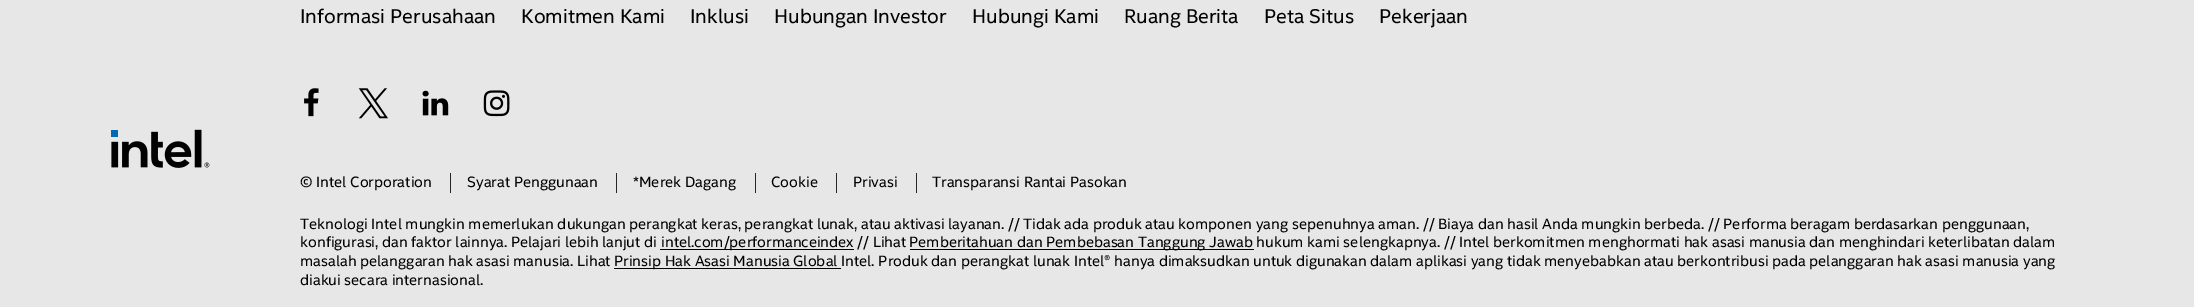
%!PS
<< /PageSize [2194 307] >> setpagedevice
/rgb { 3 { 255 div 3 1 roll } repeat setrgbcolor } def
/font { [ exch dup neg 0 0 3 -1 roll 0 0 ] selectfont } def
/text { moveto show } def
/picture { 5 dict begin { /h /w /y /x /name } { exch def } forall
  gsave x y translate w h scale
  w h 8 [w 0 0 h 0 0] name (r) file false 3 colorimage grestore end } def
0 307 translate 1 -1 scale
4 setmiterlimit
231 231 231 rgb
0 0 2194 307 rectfill
(img_01.rgb) 111 129 99 39 picture
(img_02.rgb) 304 88 15 29 picture
(img_03.rgb) 358 88 30 31 picture
(img_04.rgb) 422 90 27 26 picture
(img_05.rgb) 483 90 27 27 picture
38 38 38 rgb
450 173 1 20 rectfill
616 173 1 20 rectfill
755 173 1 20 rectfill
836 173 1 20 rectfill
916 173 1 20 rectfill
0 0 0 rgb
660 249 194 1 rectfill
910 249 344 1 rectfill
614 268 227 1 rectfill
/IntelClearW-Regular 20 font
(Informasi Perusahaan) 300 23 text
(Komitmen Kami) 521 23 text
(Inklusi) 690 23 text
(Hubungan Investor) 774 23 text
(Hubungi Kami) 972 23 text
(Ruang Berita) 1124 23 text
(Peta Situs) 1264 23 text
(Pekerjaan) 1379 23 text
/IntelClearW-Regular 15 font
(© Intel Corporation) 300 187 text
(Syarat Penggunaan) 467 187 text
(*Merek Dagang) 633 187 text
(Cookie) 771 187 text
(Privasi) 853 187 text
(Transparansi Rantai Pasokan) 932 187 text
(Teknologi Intel mungkin memerlukan dukungan perangkat keras, perangkat lunak, atau aktivasi layanan. // Tidak ada produk atau komponen yang sepenuhnya aman. // Biaya dan hasil Anda mungkin berbeda. // Performa beragam berdasarkan penggunaan,) 300 229 text
(konfigurasi, dan faktor lainnya. Pelajari lebih lanjut di) 300 247 text
(intel.com/performanceindex // Lihat) 661 247 text
(Pemberitahuan dan Pembebasan Tanggung Jawab hukum kami selengkapnya. // Intel berkomitmen menghormati hak asasi manusia dan menghindari keterlibatan dalam) 909 247 text
(masalah pelanggaran hak asasi manusia. Lihat) 300 266 text
(Prinsip Hak Asasi Manusia Global Intel. Produk dan perangkat lunak Intel® hanya dimaksudkan untuk digunakan dalam aplikasi yang tidak menyebabkan atau berkontribusi pada pelanggaran hak asasi manusia yang) 614 266 text
(diakui secara internasional.) 300 285 text
showpage
